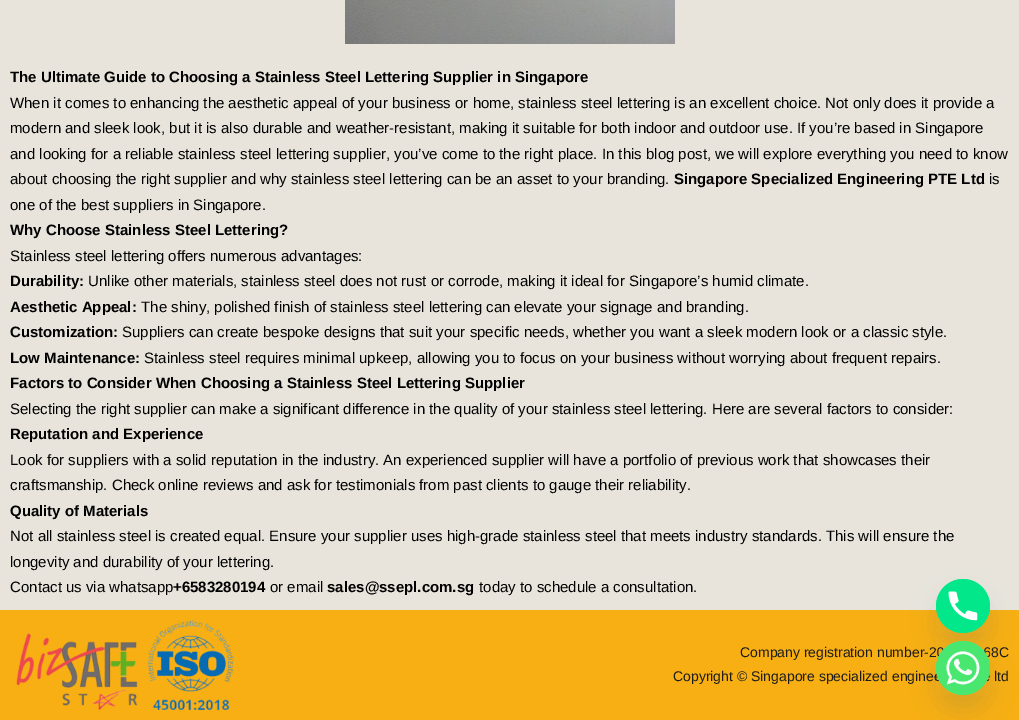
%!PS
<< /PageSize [1019 720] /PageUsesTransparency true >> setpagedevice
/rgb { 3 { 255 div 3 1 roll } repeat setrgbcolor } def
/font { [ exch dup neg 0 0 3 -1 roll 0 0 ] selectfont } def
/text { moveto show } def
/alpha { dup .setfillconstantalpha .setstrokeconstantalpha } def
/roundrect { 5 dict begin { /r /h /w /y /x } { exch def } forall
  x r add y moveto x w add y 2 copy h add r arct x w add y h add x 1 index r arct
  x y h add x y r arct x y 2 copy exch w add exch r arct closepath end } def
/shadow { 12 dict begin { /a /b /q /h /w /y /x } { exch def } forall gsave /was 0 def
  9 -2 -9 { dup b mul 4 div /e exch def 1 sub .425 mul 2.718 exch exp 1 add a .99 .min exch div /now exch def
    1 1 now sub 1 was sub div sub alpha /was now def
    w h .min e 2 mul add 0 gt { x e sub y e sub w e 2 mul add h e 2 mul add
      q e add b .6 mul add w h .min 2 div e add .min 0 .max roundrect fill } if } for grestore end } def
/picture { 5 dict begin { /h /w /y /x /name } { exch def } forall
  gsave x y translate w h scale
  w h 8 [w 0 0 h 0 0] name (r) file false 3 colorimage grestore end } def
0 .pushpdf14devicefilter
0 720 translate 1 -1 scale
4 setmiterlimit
232 228 220 rgb
0 0 1019 720 rectfill
(img_01.rgb) 345 0 330 44 picture
247 175 19 rgb
0 610 1019 110 rectfill
(img_02.rgb) 16 620 218 90 picture
73 104 126 rgb
936 595 54 54 27 12 0.16 shadow
(img_03.rgb) 936 579 54 54 picture
936 657 54 54 27 12 0.16 shadow
/LiberationSans-Bold 15 font
0 0 0 rgb
(The Ultimate Guide to Choosing a Stainless Steel Lettering Supplier in Singapore) 10 82 text
/LiberationSans-Regular 15 font
(When it comes to enhancing the aesthetic appeal of your business or home, stainless steel lettering is an excellent choice. Not only does it provide a) 10 108 text
(modern and sleek look, but it is also durable and weather-resistant, making it suitable for both indoor and outdoor use. If you’re based in Singapore) 10 133 text
(and looking for a reliable stainless steel lettering supplier, you’ve come to the right place. In this blog post, we will explore everything you need to know) 10 159 text
(about choosing the right supplier and why stainless steel lettering can be an asset to your branding.) 10 184 text
/LiberationSans-Bold 15 font
(Singapore Specialized Engineering PTE Ltd) 674 184 text
/LiberationSans-Regular 15 font
(is) 989 184 text
(one of the best suppliers in Singapore.) 10 210 text
/LiberationSans-Bold 15 font
(Why Choose Stainless Steel Lettering?) 10 235 text
/LiberationSans-Regular 15 font
(Stainless steel lettering offers numerous advantages:) 10 261 text
/LiberationSans-Bold 15 font
(Durability:) 10 286 text
/LiberationSans-Regular 15 font
(Unlike other materials, stainless steel does not rust or corrode, making it ideal for Singapore’s humid climate.) 88 286 text
/LiberationSans-Bold 15 font
(Aesthetic Appeal:) 10 312 text
/LiberationSans-Regular 15 font
(The shiny, polished finish of stainless steel lettering can elevate your signage and branding.) 141 312 text
/LiberationSans-Bold 15 font
(Customization:) 10 337 text
/LiberationSans-Regular 15 font
(Suppliers can create bespoke designs that suit your specific needs, whether you want a sleek modern look or a classic style.) 122 337 text
/LiberationSans-Bold 15 font
(Low Maintenance:) 10 363 text
/LiberationSans-Regular 15 font
(Stainless steel requires minimal upkeep, allowing you to focus on your business without worrying about frequent repairs.) 144 363 text
/LiberationSans-Bold 15 font
(Factors to Consider When Choosing a Stainless Steel Lettering Supplier) 10 388 text
/LiberationSans-Regular 15 font
(Selecting the right supplier can make a significant difference in the quality of your stainless steel lettering. Here are several factors to consider:) 10 414 text
/LiberationSans-Bold 15 font
(Reputation and Experience) 10 439 text
/LiberationSans-Regular 15 font
(Look for suppliers with a solid reputation in the industry. An experienced supplier will have a portfolio of previous work that showcases their) 10 465 text
(craftsmanship. Check online reviews and ask for testimonials from past clients to gauge their reliability.) 10 490 text
/LiberationSans-Bold 15 font
(Quality of Materials) 10 516 text
/LiberationSans-Regular 15 font
(Not all stainless steel is created equal. Ensure your supplier uses high-grade stainless steel that meets industry standards. This will ensure the) 10 541 text
(longevity and durability of your lettering.) 10 567 text
(Contact us via whatsapp) 10 592 text
/LiberationSans-Bold 15 font
(+6583280194) 173 592 text
/LiberationSans-Regular 15 font
(or email) 270 592 text
/LiberationSans-Bold 15 font
(sales@ssepl.com.sg) 327 592 text
/LiberationSans-Regular 15 font
(today to schedule a consultation.) 479 592 text
/LiberationSans-Regular 14 font
28 28 28 rgb
(Company registration number-20) 740 657 text
(68C) 983 657 text
(Copyright © Singapore specialized enginee) 673 681 text
(ltd) 994 681 text
(img_04.rgb) 936 641 54 54 picture
.poppdf14devicefilter showpage
